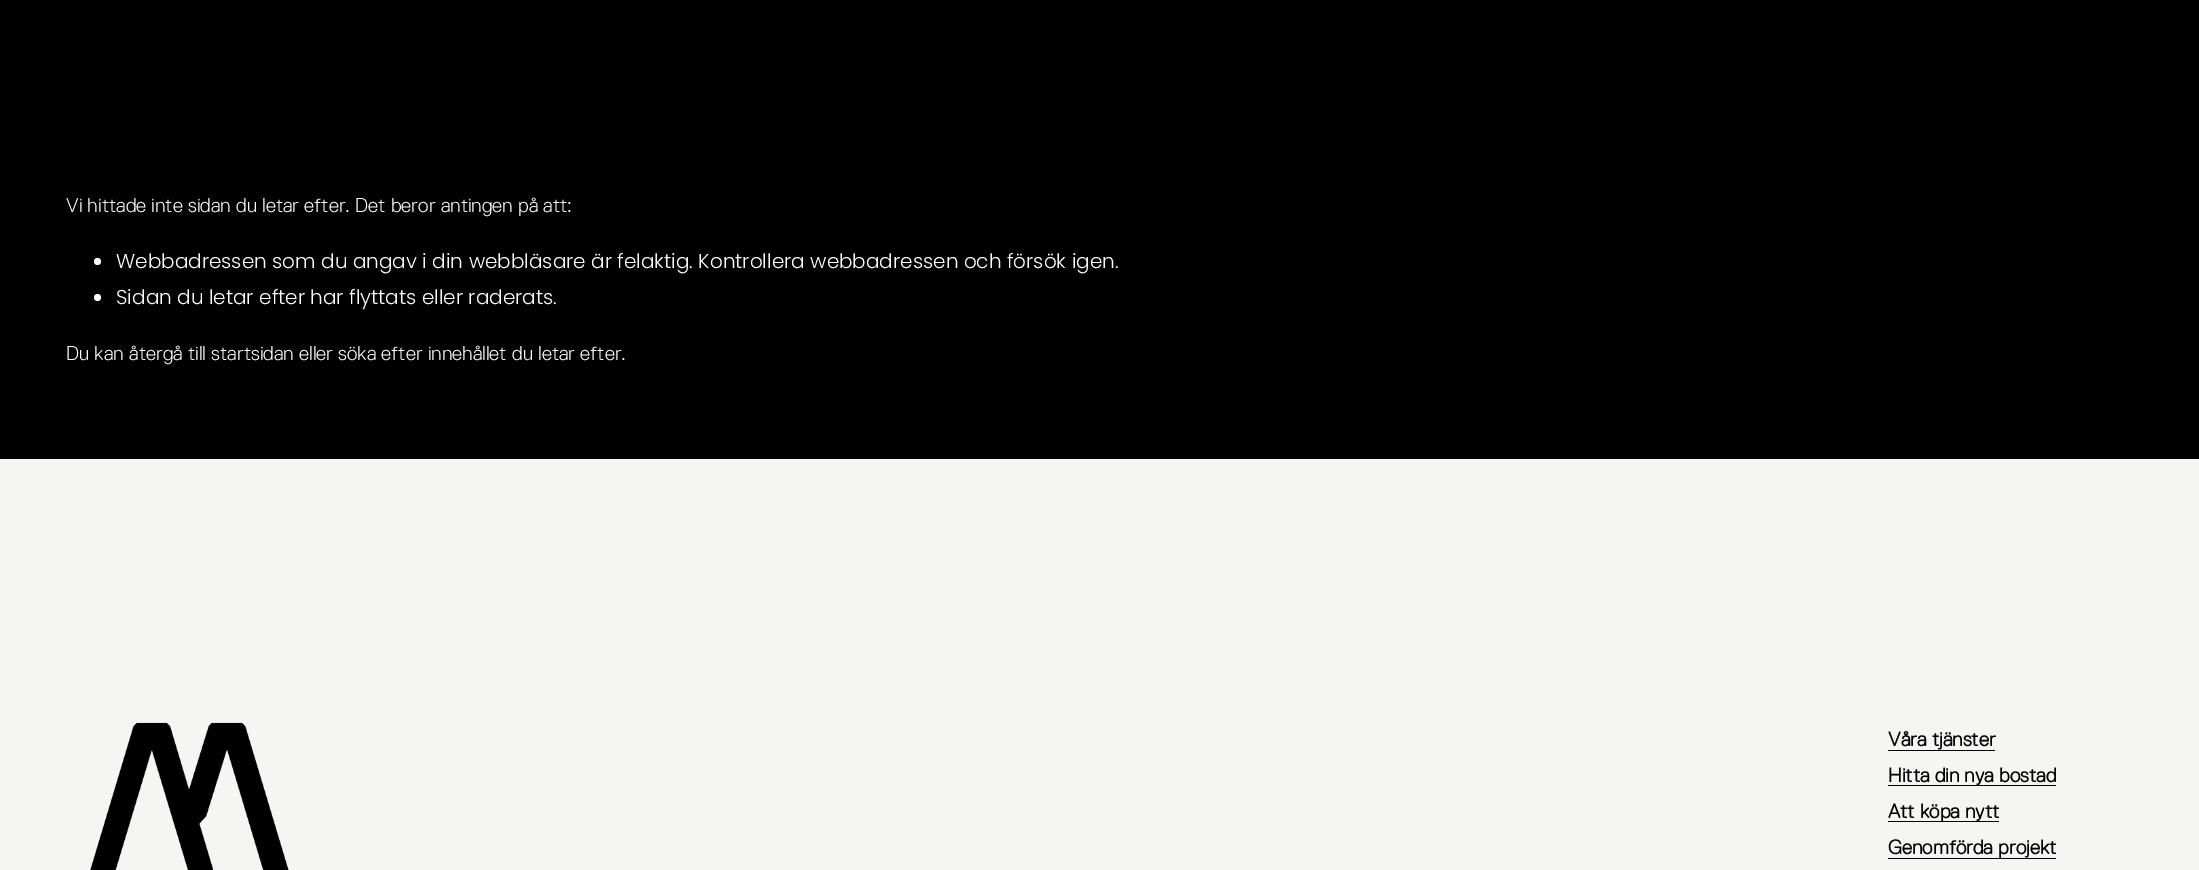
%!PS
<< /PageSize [2199 870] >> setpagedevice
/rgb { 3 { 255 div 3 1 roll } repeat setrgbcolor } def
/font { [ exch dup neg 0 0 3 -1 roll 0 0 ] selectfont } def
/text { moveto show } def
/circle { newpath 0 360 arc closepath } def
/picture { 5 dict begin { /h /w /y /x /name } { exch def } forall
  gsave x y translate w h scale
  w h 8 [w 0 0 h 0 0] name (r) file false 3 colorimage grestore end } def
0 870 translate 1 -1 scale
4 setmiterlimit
0 0 0 rgb
0 0 2199 870 rectfill
255 255 255 rgb
97.5 261.5 3.5 circle fill
97.5 297.5 3.5 circle fill
245 245 244 rgb
0 459 2199 411 rectfill
(img_01.rgb) 90 722 199 148 picture
0 0 0 rgb
1888 750 107 1 rectfill
1888 785 168 1 rectfill
1888 821 111 1 rectfill
1888 858 168 1 rectfill
/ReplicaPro-Light 20 font
255 255 255 rgb
(Vi hittade inte sidan du letar efter. Det beror antingen på att:) 66 212 text
/Poppins-Light 20 font
(Webbadressen som du angav i din webbläsare är felaktig. Kontrollera webbadressen och försök igen.) 116 268 text
(Sidan du letar efter har flyttats eller raderats.) 116 304 text
/ReplicaPro-Light 20 font
(Du kan) 66 360 text
(återgå till startsidan) 129 360 text
(eller) 299 360 text
(söka efter innehållet) 338 360 text
(du letar efter.) 512 360 text
/ReplicaPro-Bold 20 font
0 0 0 rgb
(Våra tjänster) 1888 746 text
(Hitta din nya bostad) 1888 782 text
(Att köpa nytt) 1888 818 text
(Genomförda projekt) 1888 854 text
showpage
